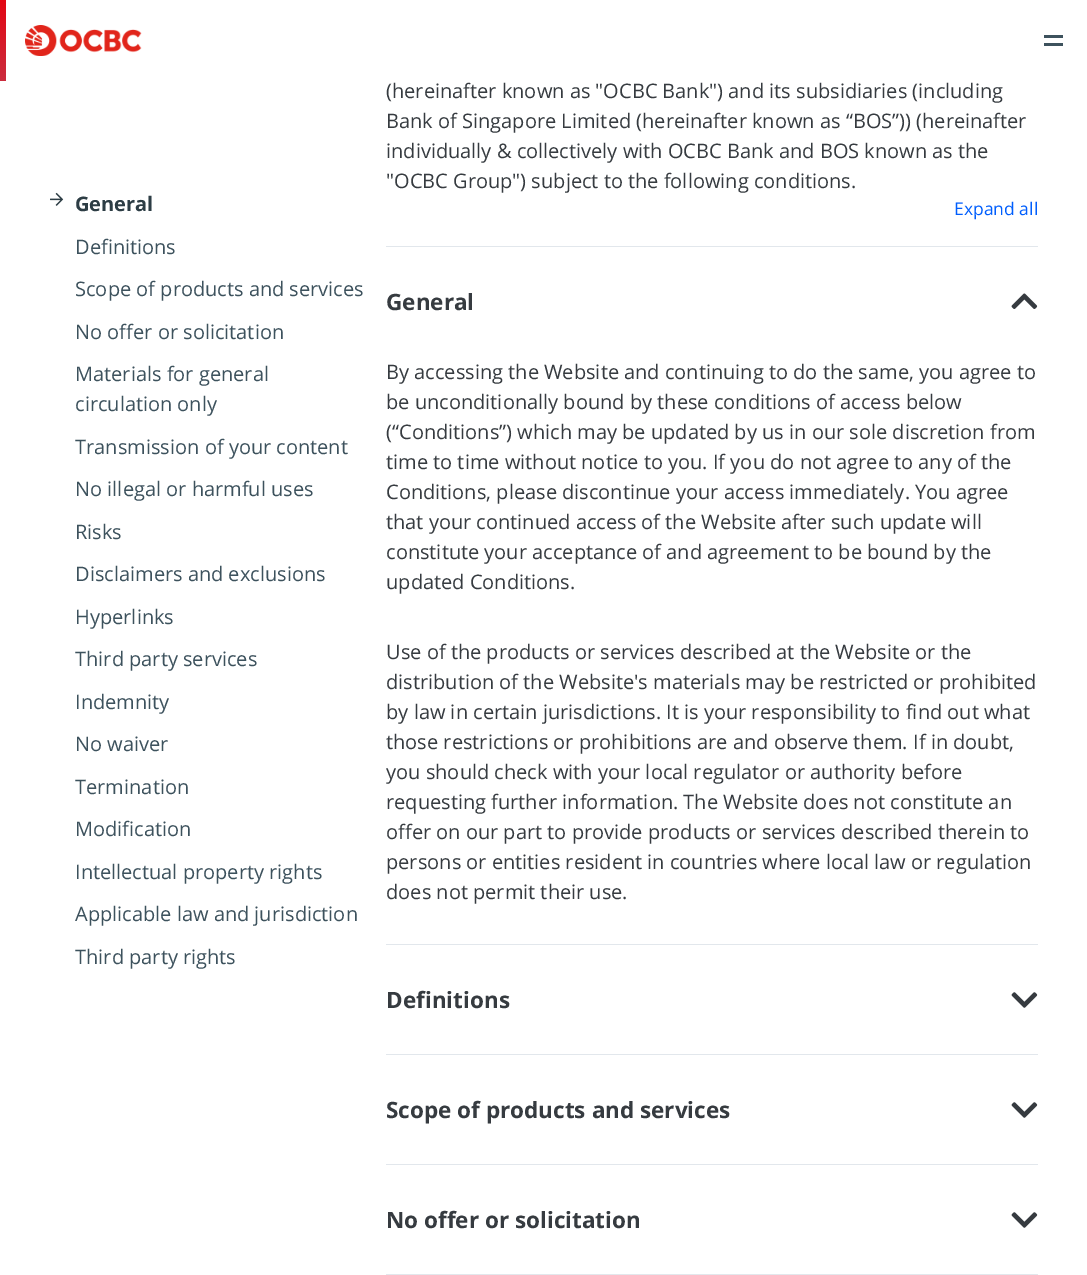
%!PS
<< /PageSize [1087 1275] >> setpagedevice
/rgb { 3 { 255 div 3 1 roll } repeat setrgbcolor } def
/font { [ exch dup neg 0 0 3 -1 roll 0 0 ] selectfont } def
/text { moveto show } def
/picture { 5 dict begin { /h /w /y /x /name } { exch def } forall
  gsave x y translate w h scale
  w h 8 [w 0 0 h 0 0] name (r) file false 3 colorimage grestore end } def
0 1275 translate 1 -1 scale
4 setmiterlimit
255 255 255 rgb
0 0 1087 1275 rectfill
gsave 0 0 moveto 6 0 rlineto 0 81 rlineto -6 0 rlineto closepath clip newpath
<< /ShadingType 2 /ColorSpace /DeviceRGB /Coords [3.1 81 3.1 0] /Extend [true true] /Function << /FunctionType 2 /Domain [0 1] /C0 [0.796 0.176 0.243] /C1 [0.89 0.024 0.075] /N 1 >> >> shfill grestore
(img_01.rgb) 25 25 117 31 picture
61 82 93 rgb
1044 35 19 3 rectfill
1044 43 19 3 rectfill
(img_02.rgb) 50 192 14 14 picture
226 231 236 rgb
386 246 652 1 rectfill
386 944 652 1 rectfill
(img_03.rgb) 1011 293 27 16 picture
386 1054 652 1 rectfill
(img_04.rgb) 1011 992 27 16 picture
386 1164 652 1 rectfill
(img_04.rgb) 1011 1102 27 16 picture
386 1274 652 1 rectfill
(img_04.rgb) 1011 1212 27 16 picture
/OpenSans-Regular 20 font
54 59 64 rgb
(\(hereinafter known as "OCBC Bank"\) and its subsidiaries \(including) 386 98 text
(Bank of Singapore Limited \(hereinafter known as “BOS”\)\) \(hereinafter) 386 128 text
(individually & collectively with OCBC Bank and BOS known as the) 386 158 text
("OCBC Group"\) subject to the following conditions.) 386 188 text
/OpenSans-Bold 20 font
45 61 69 rgb
(General) 75 211 text
/OpenSans-Regular 20 font
61 82 93 rgb
(Definitions) 75 254 text
(Scope of products and services) 75 296 text
(No offer or solicitation) 75 339 text
(Materials for general) 75 381 text
(circulation only) 75 411 text
(Transmission of your content) 75 454 text
(No illegal or harmful uses) 75 496 text
(Risks) 75 539 text
(Disclaimers and exclusions) 75 581 text
(Hyperlinks) 75 624 text
(Third party services) 75 666 text
(Indemnity) 75 709 text
(No waiver) 75 751 text
(Termination) 75 794 text
(Modification) 75 836 text
(Intellectual property rights) 75 879 text
(Applicable law and jurisdiction) 75 921 text
(Third party rights) 75 964 text
/OpenSans-Regular 17.5 font
0 94 253 rgb
(Expand all) 954 215 text
/OpenSans-Bold 22.5 font
54 59 64 rgb
(General) 386 310 text
/OpenSans-Regular 20 font
(By accessing the Website and continuing to do the same, you agree to) 386 379 text
(be unconditionally bound by these conditions of access below) 386 409 text
(\(“Conditions”\) which may be updated by us in our sole discretion from) 386 439 text
(time to time without notice to you. If you do not agree to any of the) 386 469 text
(Conditions, please discontinue your access immediately. You agree) 386 499 text
(that your continued access of the Website after such update will) 386 529 text
(constitute your acceptance of and agreement to be bound by the) 386 559 text
(updated Conditions.) 386 589 text
(Use of the products or services described at the Website or the) 386 659 text
(distribution of the Website's materials may be restricted or prohibited) 386 689 text
(by law in certain jurisdictions. It is your responsibility to find out what) 386 719 text
(those restrictions or prohibitions are and observe them. If in doubt,) 386 749 text
(you should check with your local regulator or authority before) 386 779 text
(requesting further information. The Website does not constitute an) 386 809 text
(offer on our part to provide products or services described therein to) 386 839 text
(persons or entities resident in countries where local law or regulation) 386 869 text
(does not permit their use.) 386 899 text
/OpenSans-Bold 22.5 font
(Definitions) 386 1008 text
(Scope of products and services) 386 1118 text
(No offer or solicitation) 386 1228 text
showpage
